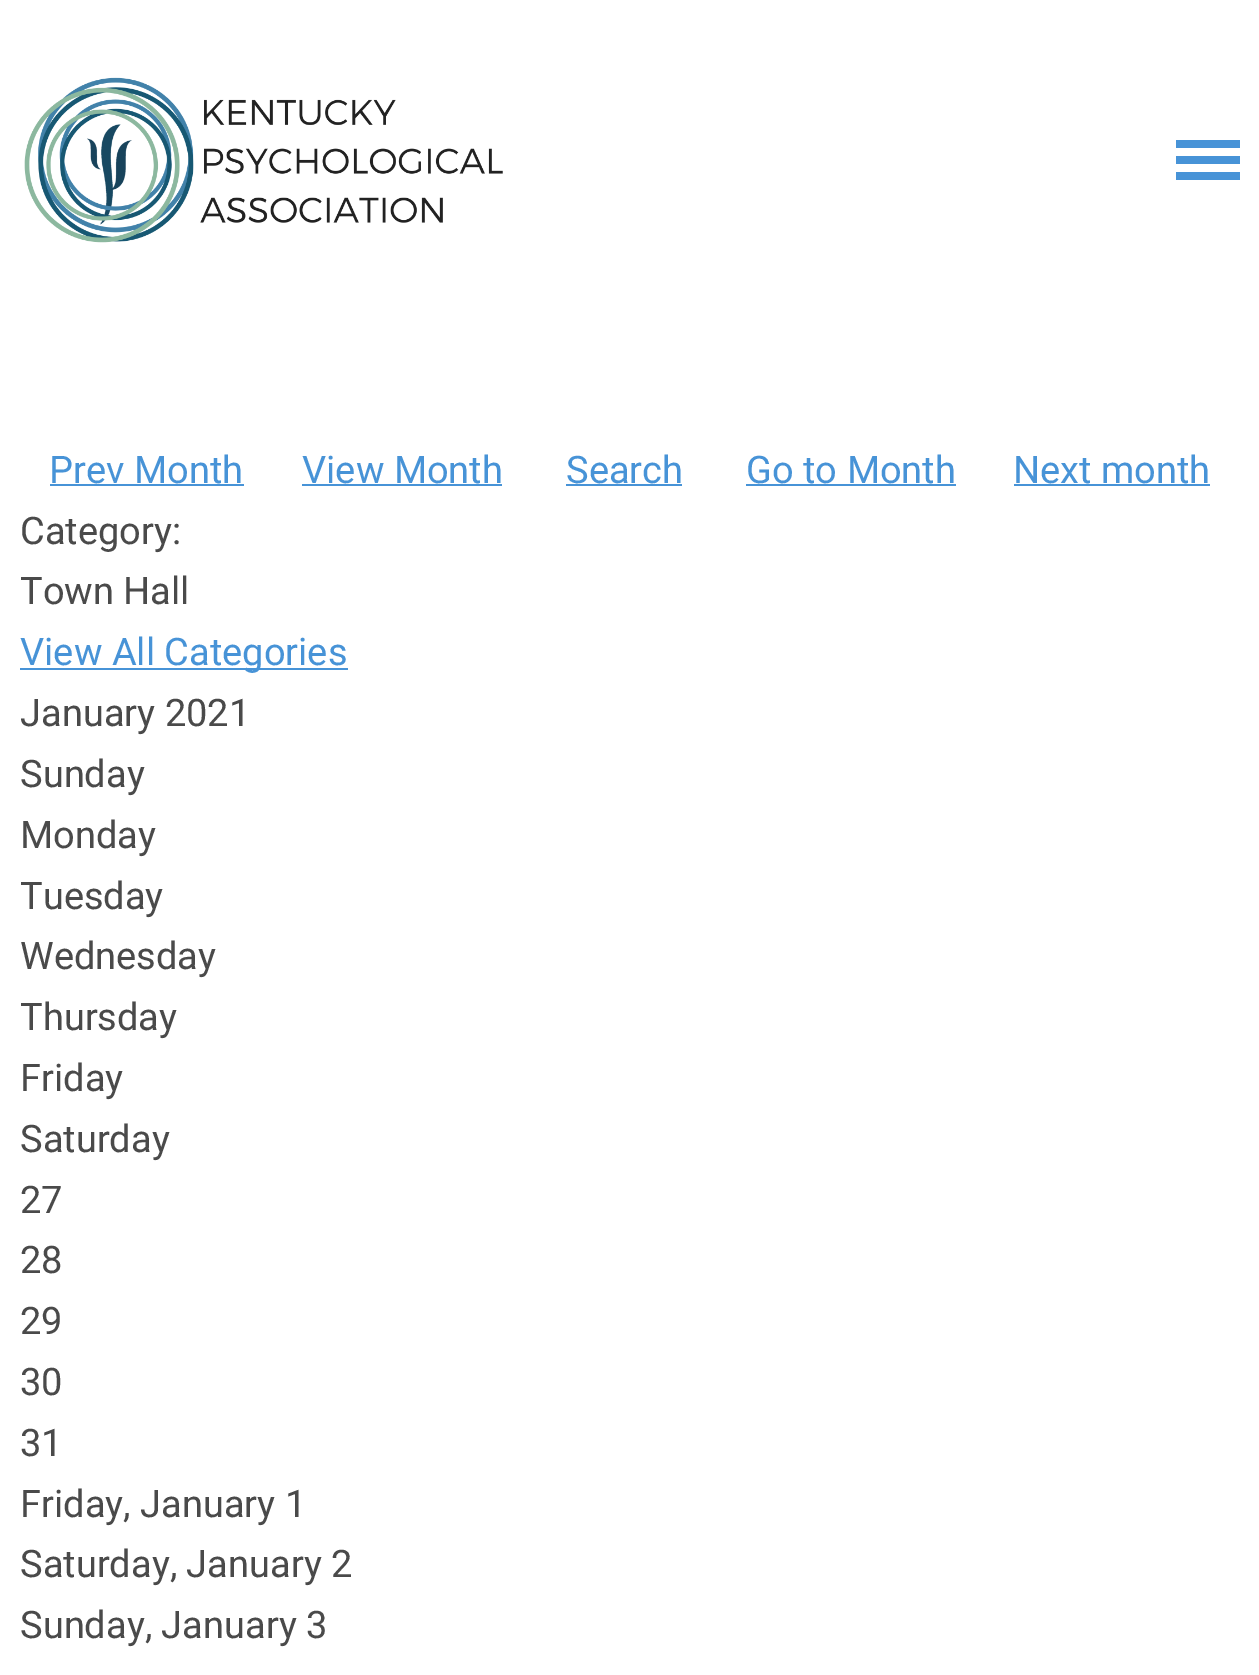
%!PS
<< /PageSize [1259 1675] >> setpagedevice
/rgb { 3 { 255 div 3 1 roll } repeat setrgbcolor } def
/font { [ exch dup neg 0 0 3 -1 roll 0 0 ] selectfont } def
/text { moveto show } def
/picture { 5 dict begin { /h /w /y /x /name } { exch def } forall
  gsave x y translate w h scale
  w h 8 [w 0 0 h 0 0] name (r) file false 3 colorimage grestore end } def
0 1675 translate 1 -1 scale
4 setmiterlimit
255 255 255 rgb
0 0 1259 1675 rectfill
(img_01.rgb) 24 77 479 166 picture
71 147 215 rgb
1176 140 moveto 64 0 rlineto 0 8 rlineto -64 0 rlineto closepath 1176 156 moveto 64 0 rlineto 0 8 rlineto -64 0 rlineto closepath 1176 172 moveto 64 0 rlineto 0 8 rlineto -64 0 rlineto closepath eofill
50 484 194 2 rectfill
302 484 200 2 rectfill
566 484 116 2 rectfill
746 484 210 2 rectfill
1014 484 196 2 rectfill
20 668 328 2 rectfill
/Roboto-Regular 38 font
(Prev Month) 49 483 text
(View Month) 302 483 text
(Search) 566 483 text
(Go to Month) 746 483 text
(Next month) 1013 483 text
74 74 74 rgb
(Category:) 20 544 text
(Town Hall) 20 604 text
71 147 215 rgb
(View All Categories) 20 665 text
74 74 74 rgb
(January 2021) 20 726 text
(Sunday) 20 787 text
(Monday) 20 848 text
(Tuesday) 20 909 text
(Wednesday) 20 969 text
(Thursday) 20 1030 text
(Friday) 20 1091 text
(Saturday) 20 1152 text
(27) 20 1213 text
(28) 20 1273 text
(29) 20 1334 text
(30) 20 1395 text
(31) 20 1456 text
(Friday, January 1) 20 1517 text
(Saturday, January 2) 20 1577 text
(Sunday, January 3) 20 1638 text
showpage
